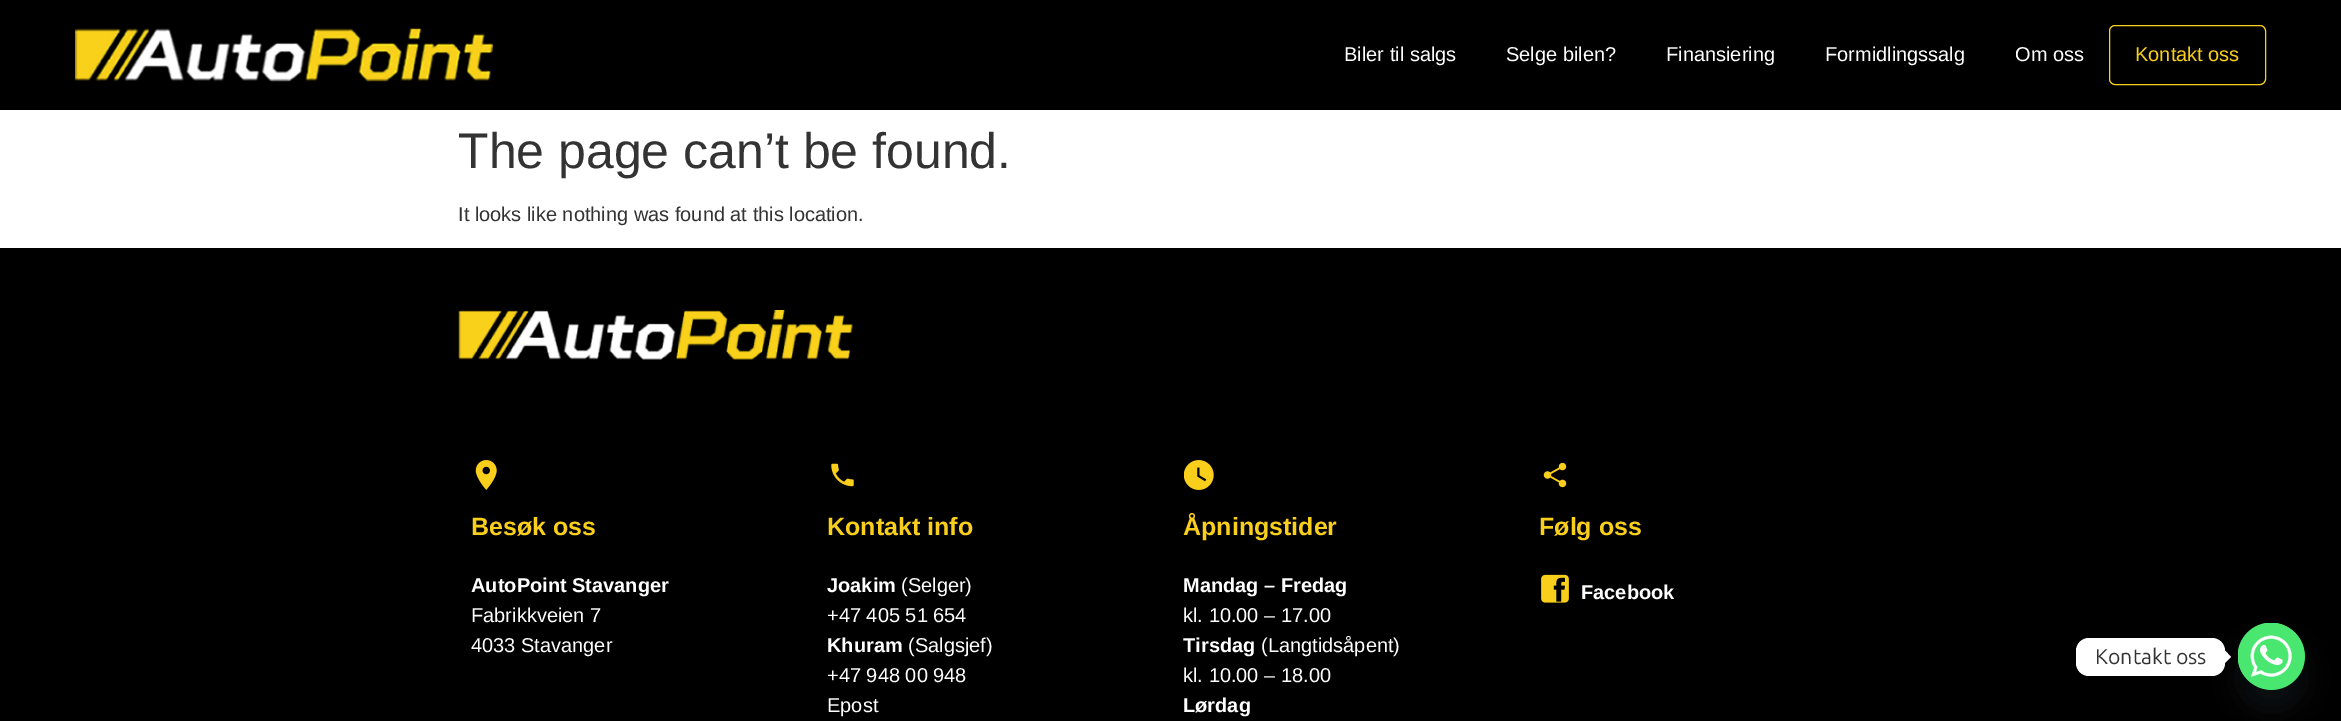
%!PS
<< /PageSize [2341 721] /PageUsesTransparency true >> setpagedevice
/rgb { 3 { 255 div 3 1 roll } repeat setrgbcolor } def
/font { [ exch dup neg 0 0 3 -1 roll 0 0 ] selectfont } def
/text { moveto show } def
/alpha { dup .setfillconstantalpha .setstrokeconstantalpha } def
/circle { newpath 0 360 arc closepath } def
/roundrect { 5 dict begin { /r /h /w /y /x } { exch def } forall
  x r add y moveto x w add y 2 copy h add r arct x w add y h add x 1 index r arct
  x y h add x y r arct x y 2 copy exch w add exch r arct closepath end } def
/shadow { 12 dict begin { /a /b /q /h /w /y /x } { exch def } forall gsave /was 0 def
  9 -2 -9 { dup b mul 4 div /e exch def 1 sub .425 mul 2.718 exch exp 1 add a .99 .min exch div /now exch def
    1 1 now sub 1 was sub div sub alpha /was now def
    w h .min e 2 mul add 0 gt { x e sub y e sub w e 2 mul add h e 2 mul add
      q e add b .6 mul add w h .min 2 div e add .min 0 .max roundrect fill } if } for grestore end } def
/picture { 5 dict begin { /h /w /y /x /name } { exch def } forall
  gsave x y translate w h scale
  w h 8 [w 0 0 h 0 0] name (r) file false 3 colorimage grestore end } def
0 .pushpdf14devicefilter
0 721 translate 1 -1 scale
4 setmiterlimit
255 255 255 rgb
0 0 2341 721 rectfill
0 0 0 rgb
0 0 2341 110 rectfill
(img_01.rgb) 75 28 419 54 picture
249 207 27 rgb
2109.5 25.5 156 59 5.5 roundrect stroke
0 0 0 rgb
0 248 2341 473 rectfill
(img_02.rgb) 458 310 395 50 picture
(img_03.rgb) 475 460 22 30 picture
(img_04.rgb) 831 463 23 24 picture
(img_05.rgb) 1184 460 30 30 picture
(img_06.rgb) 1543 462 24 26 picture
(img_07.rgb) 1541 574 28 29 picture
73 104 126 rgb
2238 643 67 67 33.5 15 0.16 shadow
255 255 255 rgb
2076 638 149 38 13 roundrect fill
2225 663 moveto 0 -12.5 rlineto 6 6.5 rlineto closepath fill
73 230 112 rgb
2271.5 656.5 33.5 circle fill
(img_08.rgb) 2238 623 67 67 picture
/LiberationSans-Regular 20 font
255 255 255 rgb
(Biler til salgs) 1344 61 text
(Selge bilen?) 1506 61 text
(Finansiering) 1666 61 text
(Formidlingssalg) 1825 61 text
(Om oss) 2015 61 text
249 207 27 rgb
(Kontakt oss) 2135 61 text
/LiberationSans-Regular 50 font
51 51 51 rgb
(The page can’t be found.) 458 168 text
/LiberationSans-Regular 20 font
(It looks like nothing was found at this location.) 458 221 text
/LiberationSans-Bold 25 font
249 207 27 rgb
(Besøk oss) 471 535 text
/LiberationSans-Bold 20 font
255 255 255 rgb
(AutoPoint Stavanger) 471 592 text
/LiberationSans-Regular 20 font
(Fabrikkveien 7) 471 622 text
(4033 Stavanger) 471 652 text
/LiberationSans-Bold 25 font
249 207 27 rgb
(Kontakt info) 827 535 text
/LiberationSans-Bold 20 font
255 255 255 rgb
(Joakim) 827 592 text
/LiberationSans-Regular 20 font
(\(Selger\)) 901 592 text
(+47 405 51 654) 827 622 text
/LiberationSans-Bold 20 font
(Khuram) 827 652 text
/LiberationSans-Regular 20 font
(\(Salgsjef\)) 908 652 text
(+47 948 00 948) 827 682 text
(Epost) 827 712 text
/LiberationSans-Bold 25 font
249 207 27 rgb
(Åpningstider) 1183 535 text
/LiberationSans-Bold 20 font
255 255 255 rgb
(Mandag – Fredag) 1183 592 text
/LiberationSans-Regular 20 font
(kl. 10.00 – 17.00) 1183 622 text
/LiberationSans-Bold 20 font
(Tirsdag) 1183 652 text
/LiberationSans-Regular 20 font
(\(Langtidsåpent\)) 1261 652 text
(kl. 10.00 – 18.00) 1183 682 text
/LiberationSans-Bold 20 font
(Lørdag) 1183 712 text
/LiberationSans-Bold 25 font
249 207 27 rgb
(Følg oss) 1539 535 text
/LiberationSans-Bold 20 font
255 255 255 rgb
(Facebook) 1581 599 text
/Ubuntu-Regular 21.25 font
51 51 51 rgb
(Kontakt oss) 2095 664 text
.poppdf14devicefilter showpage
